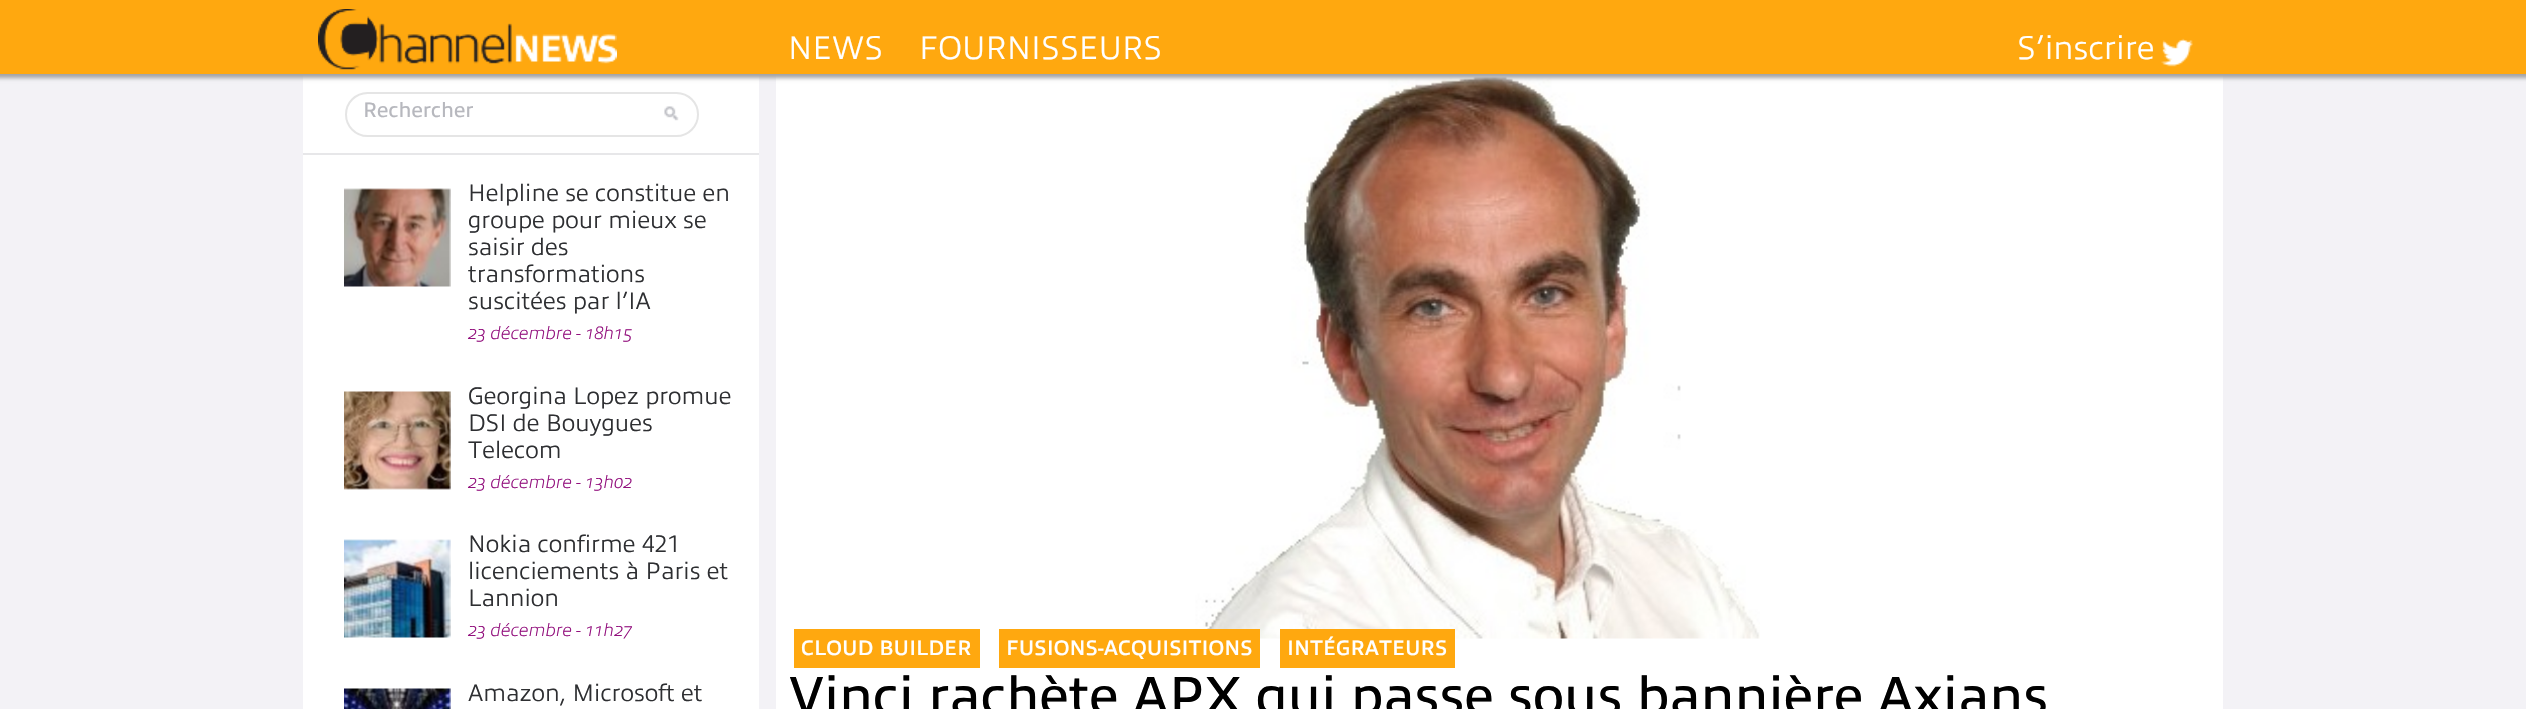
void draw(SkCanvas* canvas) {
  SkPaint paint;
  paint.setAntiAlias(true);
  auto face = [&](const char* family, int weight, float size, bool italic = false) {
    SkFontStyle style(weight, SkFontStyle::kNormal_Width,
      italic ? SkFontStyle::kItalic_Slant : SkFontStyle::kUpright_Slant);
    SkFont result(fontMgr->matchFamilyStyle(family, style), size);
    result.setSubpixel(true);
    return result;
  };
  auto paste = [&](const char* path, float x, float y, float w, float h) {
    auto image = SkImages::DeferredFromEncodedData(SkData::MakeFromFileName(path));
    canvas->drawImageRect(image, SkRect::MakeXYWH(x, y, w, h), SkSamplingOptions());
  };
  canvas->clear(0xfff3f2f6);
  paint.setColor(0xffffffff);
  canvas->drawRect(SkRect::MakeXYWH(303, 74, 456, 635), paint);
  canvas->drawRect(SkRect::MakeXYWH(776, 74, 1447, 635), paint);
  paste("img/8.png", 776, 74, 984, 565);
  paint.setColor(0xffa3a3a4);
  paint.setMaskFilter(SkMaskFilter::MakeBlur(kNormal_SkBlurStyle, 2));
  canvas->drawRect(SkRect::MakeXYWH(-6, -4, 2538, 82), paint);
  paint.setMaskFilter(nullptr);
  paint.setColor(0xffffa80f);
  canvas->drawRect(SkRect::MakeXYWH(0, 0, 2526, 74), paint);
  paste("img/1.png", 318, 9, 299, 61);
  paste("img/2.png", 2161, 38, 32, 29);
  paint.setColor(0xffe7e7e9);
  canvas->drawRect(SkRect::MakeXYWH(303, 153, 456, 2), paint);
  paint.setStroke(true);
  paint.setStrokeWidth(2);
  paint.setColor(0xffe5e5e5);
  canvas->drawRoundRect(SkRect::MakeXYWH(346, 93, 352, 43), 21.5f, 21.5f, paint);
  paste("img/3.png", 664, 106, 15, 15);
  paste("img/4.png", 344, 188, 107, 99);
  paste("img/5.png", 344, 391, 107, 99);
  paste("img/6.png", 344, 539, 107, 99);
  paste("img/7.png", 344, 688, 107, 21);
  paint.setStroke(false);
  {
    const struct { float x, y, w, h; SkColor color; } items[] = {
      {794, 629, 186, 39, 0xffffa80f},
      {999, 629, 261, 39, 0xffffa80f},
      {1280, 629, 175, 39, 0xffffa80f},
    };
    for (auto [x, y, w, h, color] : items) {
      paint.setColor(color);
      canvas->drawRect(SkRect::MakeXYWH(x, y, w, h), paint);
    }
  }
  auto f0 = face("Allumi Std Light", 300, 33);
  paint.setColor(0xffffffff);
  {
    const struct { const char* s; float x, y; } items[] = {
      {"NEWS", 788, 59},
      {"FOURNISSEURS", 919, 59},
      {"S’inscrire", 2017, 59},
    };
    for (auto [s, x, y] : items) {
      canvas->drawString(s, x, y, f0, paint);
    }
  }
  auto f1 = face("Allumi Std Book", 400, 21);
  paint.setColor(0xffb7b8be);
  canvas->drawString("Rechercher", 363, 117, f1, paint);
  auto f2 = face("Allumi Std Light", 300, 24);
  paint.setColor(0xff2e2f32);
  {
    const struct { const char* s; float x, y; } items[] = {
      {"Helpline se constitue en", 468, 201},
      {"groupe pour mieux se", 468, 228},
      {"saisir des", 468, 255},
      {"transformations", 468, 282},
      {"suscitées par l’IA", 468, 309},
    };
    for (auto [s, x, y] : items) {
      canvas->drawString(s, x, y, f2, paint);
    }
  }
  auto f3 = face("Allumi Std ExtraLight", 200, 18, true);
  paint.setColor(0xff93117e);
  canvas->drawString("23 décembre - 18h15", 468, 339, f3, paint);
  paint.setColor(0xff2e2f32);
  {
    const struct { const char* s; float x, y; } items[] = {
      {"Georgina Lopez promue", 468, 404},
      {"DSI de Bouygues", 468, 431},
      {"Telecom", 468, 458},
    };
    for (auto [s, x, y] : items) {
      canvas->drawString(s, x, y, f2, paint);
    }
  }
  paint.setColor(0xff93117e);
  canvas->drawString("23 décembre - 13h02", 468, 488, f3, paint);
  paint.setColor(0xff2e2f32);
  {
    const struct { const char* s; float x, y; } items[] = {
      {"Nokia confirme 421", 468, 552},
      {"licenciements à Paris et", 468, 579},
      {"Lannion", 468, 606},
    };
    for (auto [s, x, y] : items) {
      canvas->drawString(s, x, y, f2, paint);
    }
  }
  paint.setColor(0xff93117e);
  canvas->drawString("23 décembre - 11h27", 468, 636, f3, paint);
  paint.setColor(0xff2e2f32);
  canvas->drawString("Amazon, Microsoft et", 468, 701, f2, paint);
  auto f4 = face("Allumi Std Light", 700, 21);
  paint.setColor(0xffffffff);
  {
    const struct { const char* s; float x, y; } items[] = {
      {"CLOUD BUILDER", 801, 655},
      {"FUSIONS-ACQUISITIONS", 1006, 655},
      {"INTÉGRATEURS", 1287, 655},
    };
    for (auto [s, x, y] : items) {
      canvas->drawString(s, x, y, f4, paint);
    }
  }
  auto f5 = face("Allumi Std Book", 400, 54);
  paint.setColor(0xff000000);
  canvas->drawString("Vinci rachète APX qui passe sous bannière Axians", 789, 714, f5, paint);
}
